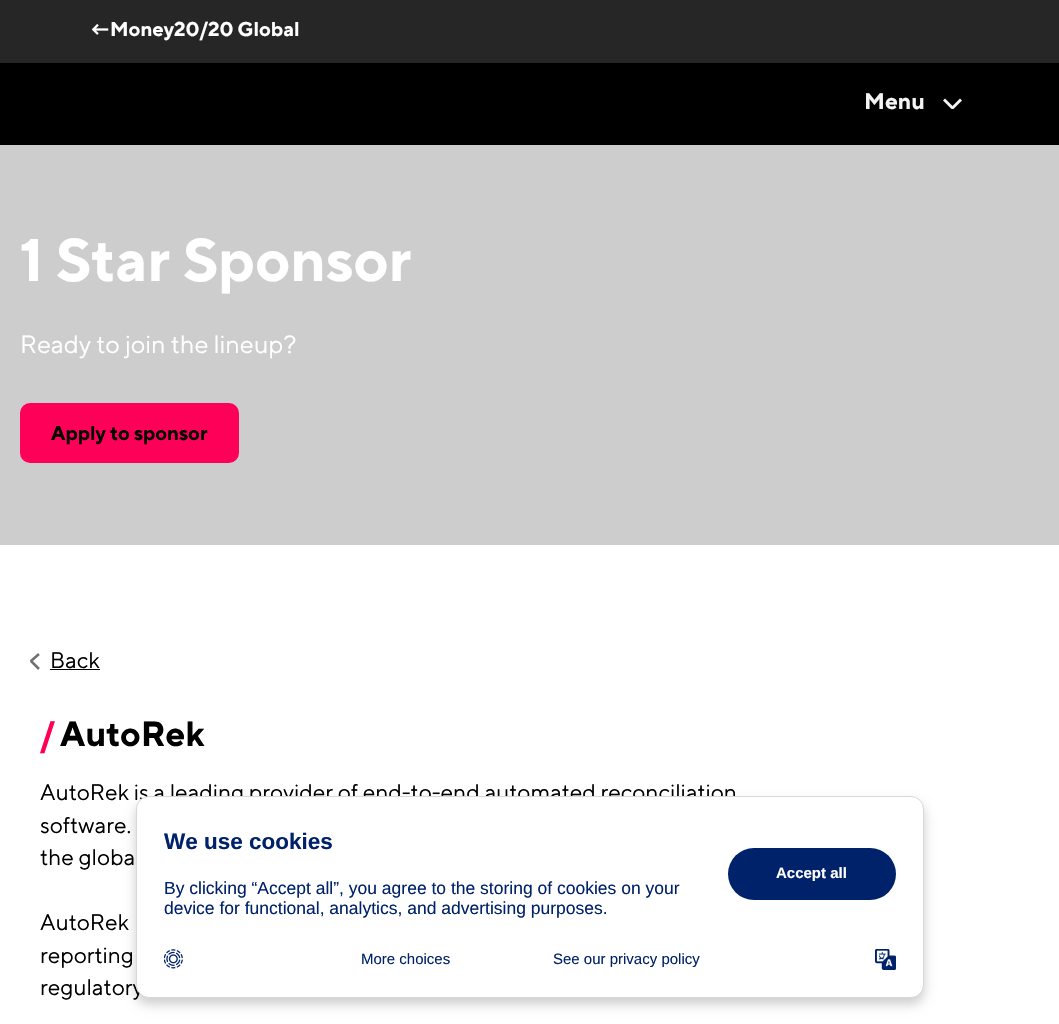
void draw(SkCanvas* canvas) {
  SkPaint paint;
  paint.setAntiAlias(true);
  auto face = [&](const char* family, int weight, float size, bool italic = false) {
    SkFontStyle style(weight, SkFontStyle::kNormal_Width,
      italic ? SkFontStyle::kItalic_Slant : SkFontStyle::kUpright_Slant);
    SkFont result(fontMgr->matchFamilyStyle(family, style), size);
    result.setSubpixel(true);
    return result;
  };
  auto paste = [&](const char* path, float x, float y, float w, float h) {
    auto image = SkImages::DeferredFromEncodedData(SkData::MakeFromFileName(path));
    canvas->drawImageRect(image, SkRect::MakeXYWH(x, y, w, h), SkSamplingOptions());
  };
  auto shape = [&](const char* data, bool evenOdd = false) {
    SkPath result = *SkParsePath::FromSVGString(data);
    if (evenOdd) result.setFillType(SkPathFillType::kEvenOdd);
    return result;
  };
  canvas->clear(0xffffffff);
  paint.setColor(0xff262626);
  canvas->drawRect(SkRect::MakeXYWH(0, 0, 1059, 63), paint);
  paint.setColor(0xff000000);
  canvas->drawRect(SkRect::MakeXYWH(0, 63, 1059, 82), paint);
  paint.setStroke(true);
  paint.setStrokeWidth(2.9f);
  paint.setStrokeJoin(SkPaint::kBevel_Join);
  paint.setColor(0xfff4f4f4);
  canvas->drawPath(shape("M944 99.5L952.5 108L961 99.5"), paint);
  paint.setStroke(false);
  paint.setColor(0xffcdcdcd);
  canvas->drawRect(SkRect::MakeXYWH(0, 145, 1059, 400), paint);
  paint.setColor(0xffff0059);
  canvas->drawRoundRect(SkRect::MakeXYWH(20, 403, 219, 60), 10, 10, paint);
  paint.setStroke(true);
  paint.setStrokeWidth(2.5f);
  paint.setColor(0xff707070);
  canvas->drawPath(shape("M39 654L31 661L39 669"), paint);
  paint.setStroke(false);
  paint.setColor(0xff000000);
  canvas->drawRect(SkRect::MakeXYWH(50, 669, 50, 1), paint);
  paint.setColor(0x33000000);
  paint.setMaskFilter(SkMaskFilter::MakeBlur(kNormal_SkBlurStyle, 6));
  canvas->drawRoundRect(SkRect::MakeXYWH(136, 803, 788, 201), 13, 13, paint);
  paint.setMaskFilter(nullptr);
  auto f0 = face("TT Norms", 700, 20);
  paint.setColor(0xffffffff);
  canvas->drawString("←Money20/20 Global", 90, 36, f0, paint);
  auto f1 = face("TT Norms", 700, 22.5f);
  paint.setColor(0xfff4f4f4);
  canvas->drawString("Menu", 864, 109, f1, paint);
  auto f2 = face("TT Norms", 700, 60);
  paint.setColor(0xffffffff);
  canvas->drawString("1 Star Sponsor", 20, 281, f2, paint);
  auto f3 = face("TT Norms", 400, 25);
  canvas->drawString("Ready to join the lineup?", 20, 353, f3, paint);
  paint.setColor(0xff000000);
  canvas->drawString("Apply to sponsor", 51, 440, f0, paint);
  auto f4 = face("TT Norms", 400, 22.5f);
  canvas->drawString("Back", 50, 668, f4, paint);
  auto f5 = face("TT Norms", 700, 35);
  paint.setColor(0xffff0059);
  canvas->drawString("/", 40, 746, f5, paint);
  paint.setColor(0xff000000);
  canvas->drawString("AutoRek", 60, 746, f5, paint);
  {
    const struct { const char* s; float x, y; } items[] = {
      {"AutoRek is a leading provider of end-to-end automated reconciliation", 40, 800},
      {"software.", 40, 833},
      {"the globa", 40, 865},
      {"AutoRek", 40, 930},
      {"reporting", 40, 963},
      {"regulatory", 40, 995},
    };
    for (auto [s, x, y] : items) {
      canvas->drawString(s, x, y, f4, paint);
    }
  }
  paint.setColor(0xffffffff);
  canvas->drawRoundRect(SkRect::MakeXYWH(136.5f, 796.5f, 787, 201), 12.5f, 12.5f, paint);
  paint.setStroke(true);
  paint.setStrokeWidth(1);
  paint.setStrokeJoin(SkPaint::kMiter_Join);
  paint.setColor(0xffd8d8d8);
  canvas->drawRoundRect(SkRect::MakeXYWH(136.5f, 796.5f, 787, 201), 12.5f, 12.5f, paint);
  auto f6 = face("Liberation Sans", 700, 22.5f);
  paint.setStroke(false);
  paint.setColor(0xff00226a);
  canvas->drawString("We use cookies", 164, 849, f6, paint);
  auto f7 = face("Liberation Sans", 400, 17.5f);
  canvas->drawString("By clicking “Accept all”, you agree to the storing of cookies on your", 164, 894, f7, paint);
  canvas->drawString("device for functional, analytics, and advertising purposes.", 164, 914, f7, paint);
  canvas->drawRoundRect(SkRect::MakeXYWH(728, 848, 168, 52), 26, 26, paint);
  auto f8 = face("Liberation Sans", 700, 15);
  paint.setColor(0xffffffff);
  canvas->drawString("Accept all", 776, 878, f8, paint);
  paste("img/1.png", 164, 949, 19, 20);
  auto f9 = face("Liberation Sans", 400, 15);
  paint.setColor(0xff00226a);
  canvas->drawString("More choices", 361, 964, f9, paint);
  canvas->drawString("See our privacy policy", 553, 964, f9, paint);
  paste("img/2.png", 875, 949, 21, 21);
}
